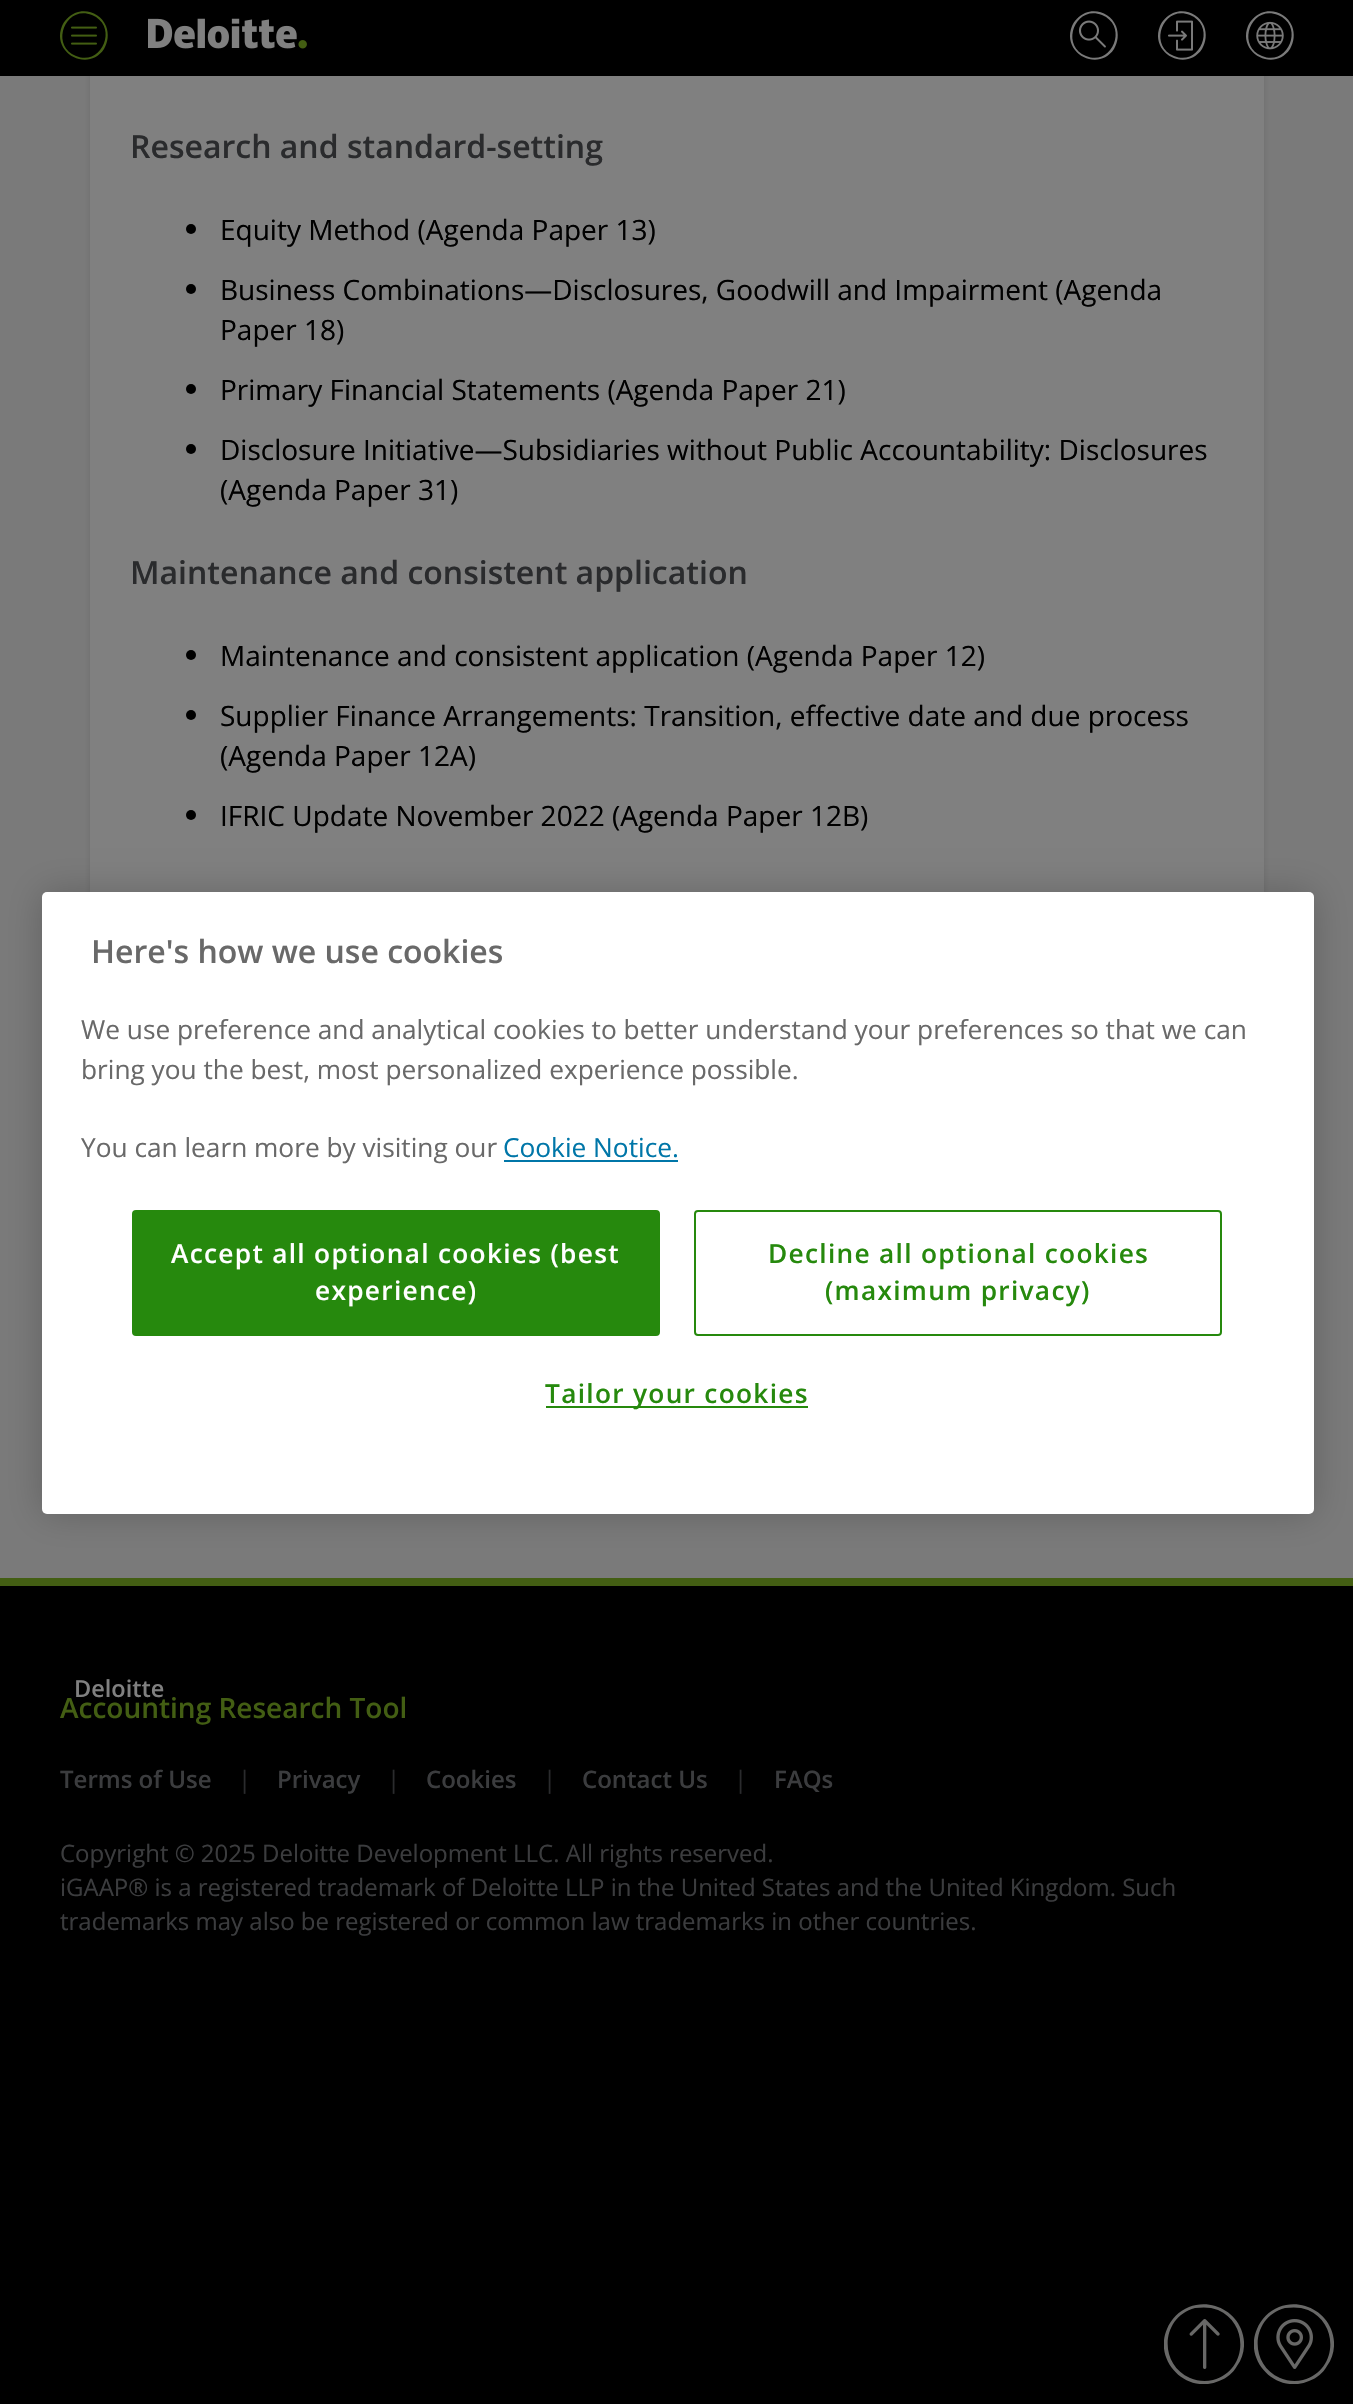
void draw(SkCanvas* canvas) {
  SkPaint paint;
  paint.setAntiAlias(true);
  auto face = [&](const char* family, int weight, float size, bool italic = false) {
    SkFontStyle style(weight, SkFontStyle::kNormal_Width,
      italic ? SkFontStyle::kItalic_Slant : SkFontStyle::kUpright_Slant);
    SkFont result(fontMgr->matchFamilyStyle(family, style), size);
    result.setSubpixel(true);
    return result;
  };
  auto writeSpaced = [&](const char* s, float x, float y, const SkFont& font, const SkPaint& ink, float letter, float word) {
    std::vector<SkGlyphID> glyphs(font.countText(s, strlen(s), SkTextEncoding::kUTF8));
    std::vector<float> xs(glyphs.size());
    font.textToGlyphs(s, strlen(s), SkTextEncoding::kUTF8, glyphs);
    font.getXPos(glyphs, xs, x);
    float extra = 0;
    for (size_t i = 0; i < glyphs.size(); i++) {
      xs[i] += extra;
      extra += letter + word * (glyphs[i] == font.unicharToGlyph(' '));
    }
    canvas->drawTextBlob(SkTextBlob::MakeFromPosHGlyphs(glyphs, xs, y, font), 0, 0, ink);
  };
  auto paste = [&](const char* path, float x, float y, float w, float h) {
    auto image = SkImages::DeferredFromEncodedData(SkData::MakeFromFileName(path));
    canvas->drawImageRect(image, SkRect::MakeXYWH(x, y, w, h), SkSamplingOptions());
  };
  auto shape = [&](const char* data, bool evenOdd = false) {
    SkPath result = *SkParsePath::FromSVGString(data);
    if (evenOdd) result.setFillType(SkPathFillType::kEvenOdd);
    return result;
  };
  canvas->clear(0xff000000);
  paint.setColor(0xff7a7a7a);
  canvas->drawRect(SkRect::MakeXYWH(0, 76, 1353, 1502), paint);
  paint.setColor(0x1a000000);
  paint.setMaskFilter(SkMaskFilter::MakeBlur(kNormal_SkBlurStyle, 3));
  canvas->drawRect(SkRect::MakeXYWH(90, -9, 1174, 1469), paint);
  paint.setMaskFilter(nullptr);
  paint.setColor(0xff435e13);
  canvas->drawPath(shape("M75 13C87 8 101 14 106 26C109 34 108 42 104 49C88 73 51 53 62 26C64 21 69 16 75 13ZM92 15C66 4 49 45 76 56C102 67 119 26 92 15Z"), paint);
  paste("img/1.png", 71, 26, 26, 19);
  paste("img/2.png", 148, 18, 149, 31);
  paste("img/3.png", 298, 40, 9, 9);
  paint.setColor(0xff7a7a7a);
  canvas->drawPath(shape("M1085 13C1097 8 1111 14 1116 26C1119 34 1118 42 1114 49C1098 73 1061 53 1072 26C1074 21 1079 16 1085 13ZM1102 15C1076 4 1059 45 1086 56C1112 67 1129 26 1102 15Z"), paint);
  paste("img/4.png", 1078, 20, 28, 28);
  canvas->drawPath(shape("M1173 13C1185 8 1199 14 1204 26C1207 34 1206 42 1202 49C1186 73 1149 53 1160 26C1162 21 1167 16 1173 13ZM1190 15C1164 4 1147 45 1174 56C1200 67 1217 26 1190 15Z"), paint);
  paste("img/5.png", 1168, 20, 25, 31);
  canvas->drawPath(shape("M1261 13C1273 8 1287 14 1292 26C1295 34 1294 42 1290 49C1274 73 1237 53 1248 26C1250 21 1255 16 1261 13ZM1278 15C1252 4 1235 45 1262 56C1288 67 1305 26 1278 15Z"), paint);
  paste("img/6.png", 1256, 21, 28, 29);
  paint.setColor(0xff808080);
  canvas->drawRect(SkRect::MakeXYWH(90, 76, 1174, 816), paint);
  paint.setColor(0xff000000);
  canvas->drawCircle(191, 229, 5, paint);
  canvas->drawCircle(191, 289, 5, paint);
  canvas->drawCircle(191, 389, 5, paint);
  canvas->drawCircle(191, 449, 5, paint);
  canvas->drawCircle(191, 655, 5, paint);
  canvas->drawCircle(191, 715, 5, paint);
  canvas->drawCircle(191, 815, 5, paint);
  paint.setColor(0x33000000);
  paint.setMaskFilter(SkMaskFilter::MakeBlur(kNormal_SkBlurStyle, 18));
  canvas->drawRoundRect(SkRect::MakeXYWH(42, 892, 1272, 622), 5, 5, paint);
  paint.setMaskFilter(nullptr);
  paint.setColor(0xffffffff);
  canvas->drawRoundRect(SkRect::MakeXYWH(42, 892, 1272, 622), 5, 5, paint);
  paint.setColor(0xff0076a8);
  canvas->drawRect(SkRect::MakeXYWH(504, 1160, 174, 2), paint);
  paint.setColor(0xff26890d);
  canvas->drawRoundRect(SkRect::MakeXYWH(133, 1211, 526, 124), 3, 3, paint);
  paint.setStroke(true);
  paint.setStrokeWidth(2);
  canvas->drawRoundRect(SkRect::MakeXYWH(133, 1211, 526, 124), 3, 3, paint);
  canvas->drawRoundRect(SkRect::MakeXYWH(695, 1211, 526, 124), 3, 3, paint);
  paint.setStroke(false);
  canvas->drawRect(SkRect::MakeXYWH(546, 1406, 262, 2), paint);
  paint.setColor(0xff435e13);
  canvas->drawRect(SkRect::MakeXYWH(0, 1578, 1353, 8), paint);
  canvas->save();
  canvas->clipRect(SkRect::MakeXYWH(1164, 2304, 80, 80));
  paint.setColor(0xff686867);
  canvas->drawPath(shape("M1189 2307C1209 2299 1233 2309 1241 2329C1246 2341 1245 2355 1237 2366C1233 2373 1227 2378 1219 2381C1187 2395 1153 2361 1167 2329C1171 2319 1179 2311 1189 2307ZM1218 2310C1211 2307 1203 2307 1195 2308C1161 2317 1158 2364 1190 2378C1197 2381 1205 2382 1213 2380C1247 2371 1250 2324 1218 2310Z"), paint);
  canvas->restore();
  paste("img/7.png", 1189, 2319, 31, 50);
  canvas->save();
  canvas->clipRect(SkRect::MakeXYWH(1254, 2304, 80, 80));
  canvas->drawPath(shape("M1279 2307C1299 2299 1323 2309 1331 2329C1336 2341 1335 2355 1327 2366C1323 2373 1317 2378 1309 2381C1277 2395 1243 2361 1257 2329C1261 2319 1269 2311 1279 2307ZM1308 2310C1301 2307 1293 2307 1285 2308C1251 2317 1248 2364 1280 2378C1287 2381 1295 2382 1303 2380C1337 2371 1340 2324 1308 2310Z"), paint);
  canvas->restore();
  paste("img/8.png", 1276, 2319, 37, 50);
  auto f0 = face("Open Sans", 600, 32);
  paint.setColor(0xff2a2b2d);
  canvas->drawString("Research and standard-setting", 130, 158, f0, paint);
  auto f1 = face("Open Sans", 400, 28);
  paint.setColor(0xff000000);
  {
    const struct { const char* s; float x, y; } items[] = {
      {"Equity Method (Agenda Paper 13)", 220, 240},
      {"Business Combinations—Disclosures, Goodwill and Impairment (Agenda", 220, 300},
      {"Paper 18)", 220, 340},
      {"Primary Financial Statements (Agenda Paper 21)", 220, 400},
      {"Disclosure Initiative—Subsidiaries without Public Accountability: Disclosures", 220, 460},
      {"(Agenda Paper 31)", 220, 500},
    };
    for (auto [s, x, y] : items) {
      canvas->drawString(s, x, y, f1, paint);
    }
  }
  paint.setColor(0xff2a2b2d);
  canvas->drawString("Maintenance and consistent application", 130, 584, f0, paint);
  paint.setColor(0xff000000);
  {
    const struct { const char* s; float x, y; } items[] = {
      {"Maintenance and consistent application (Agenda Paper 12)", 220, 666},
      {"Supplier Finance Arrangements: Transition, effective date and due process", 220, 726},
      {"(Agenda Paper 12A)", 220, 766},
      {"IFRIC Update November 2022 (Agenda Paper 12B)", 220, 826},
    };
    for (auto [s, x, y] : items) {
      canvas->drawString(s, x, y, f1, paint);
    }
  }
  paint.setColor(0xff696969);
  canvas->drawString("Here's how we use cookies", 91, 963, f0, paint);
  auto f2 = face("Open Sans", 400, 26.25f);
  {
    const struct { const char* s; float x, y; } items[] = {
      {"We use preference and analytical cookies to better understand your preferences so that we can", 81, 1039},
      {"bring you the best, most personalized experience possible.", 81, 1079},
      {"You can learn more by visiting our", 81, 1157},
    };
    for (auto [s, x, y] : items) {
      canvas->drawString(s, x, y, f2, paint);
    }
  }
  paint.setColor(0xff0076a8);
  canvas->drawString("Cookie Notice.", 503, 1157, f2, paint);
  auto f3 = face("Open Sans", 600, 26.25f);
  paint.setColor(0xffffffff);
  writeSpaced("Accept all optional cookies (best", 171, 1263, f3, paint, 1.3f, 0);
  writeSpaced("experience)", 315, 1300, f3, paint, 1.3f, 0);
  paint.setColor(0xff26890d);
  {
    const struct { const char* s; float x, y; } items[] = {
      {"Decline all optional cookies", 768, 1263},
      {"(maximum privacy)", 825, 1300},
      {"Tailor your cookies", 545, 1403},
    };
    for (auto [s, x, y] : items) {
      writeSpaced(s, x, y, f3, paint, 1.3f, 0);
    }
  }
  auto f4 = face("Open Sans", 600, 23.5f);
  paint.setColor(0xff808080);
  canvas->drawString("Deloitte", 74, 1697, f4, paint);
  auto f5 = face("Open Sans", 600, 28);
  paint.setColor(0xff435e13);
  canvas->drawString("Accounting Research Tool", 60, 1718, f5, paint);
  auto f6 = face("Open Sans", 600, 24);
  paint.setColor(0xff3b3c3e);
  canvas->drawString("Terms of Use", 60, 1788, f6, paint);
  auto f7 = face("Open Sans", 400, 24);
  paint.setColor(0xff2a2b2d);
  canvas->drawString("|", 238, 1788, f7, paint);
  paint.setColor(0xff3b3c3e);
  canvas->drawString("Privacy", 277, 1788, f6, paint);
  paint.setColor(0xff2a2b2d);
  canvas->drawString("|", 387, 1788, f7, paint);
  paint.setColor(0xff3b3c3e);
  canvas->drawString("Cookies", 426, 1788, f6, paint);
  paint.setColor(0xff2a2b2d);
  canvas->drawString("|", 543, 1788, f7, paint);
  paint.setColor(0xff3b3c3e);
  canvas->drawString("Contact Us", 582, 1788, f6, paint);
  paint.setColor(0xff2a2b2d);
  canvas->drawString("|", 734, 1788, f7, paint);
  paint.setColor(0xff3b3c3e);
  canvas->drawString("FAQs", 774, 1788, f6, paint);
  {
    const struct { const char* s; float x, y; } items[] = {
      {"Copyright © 2025 Deloitte Development LLC. All rights reserved.", 60, 1862},
      {"iGAAP® is a registered trademark of Deloitte LLP in the United States and the United Kingdom. Such", 60, 1896},
      {"trademarks may also be registered or common law trademarks in other countries.", 60, 1930},
    };
    for (auto [s, x, y] : items) {
      canvas->drawString(s, x, y, f7, paint);
    }
  }
}
